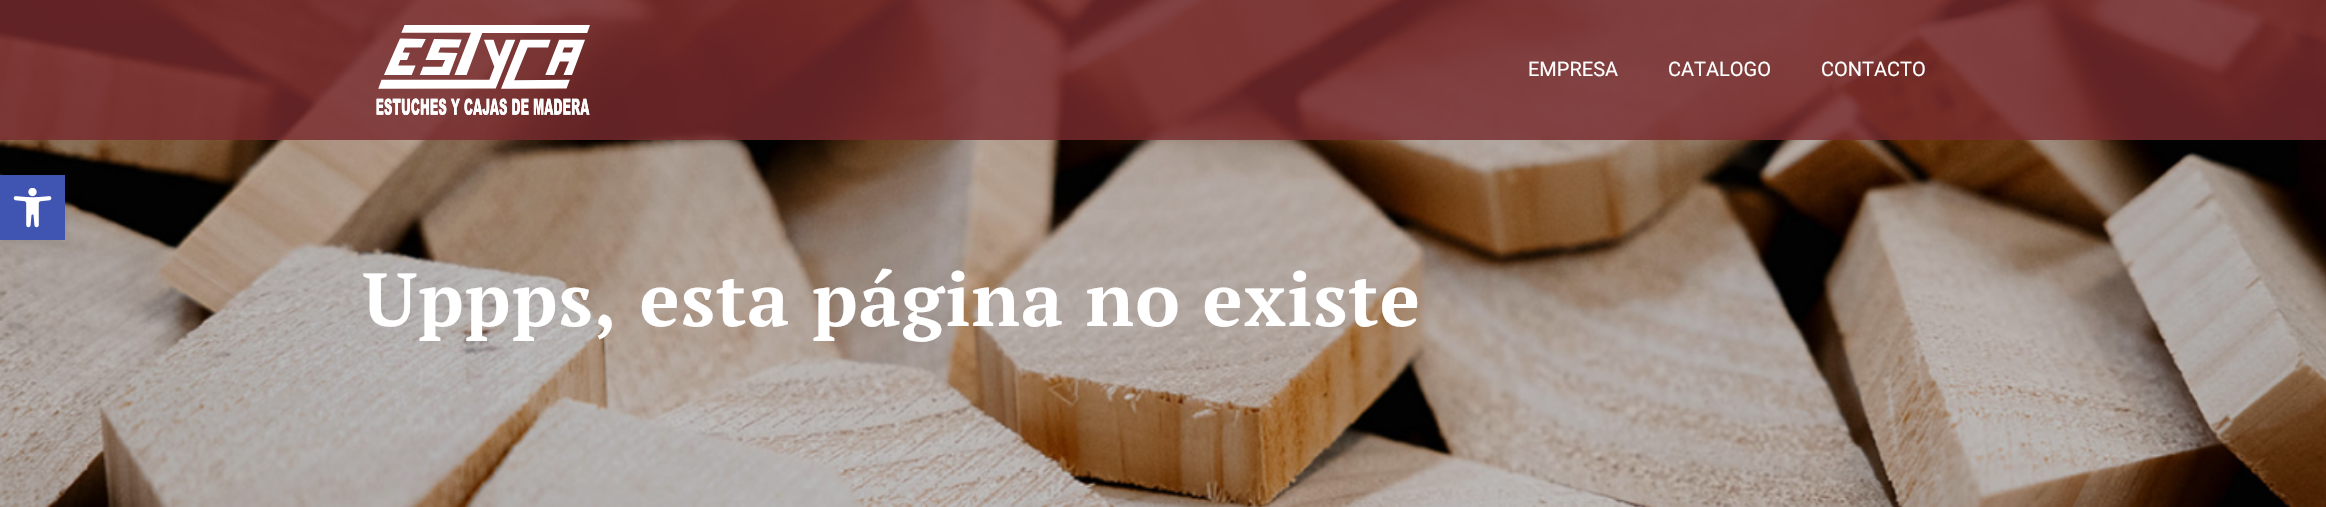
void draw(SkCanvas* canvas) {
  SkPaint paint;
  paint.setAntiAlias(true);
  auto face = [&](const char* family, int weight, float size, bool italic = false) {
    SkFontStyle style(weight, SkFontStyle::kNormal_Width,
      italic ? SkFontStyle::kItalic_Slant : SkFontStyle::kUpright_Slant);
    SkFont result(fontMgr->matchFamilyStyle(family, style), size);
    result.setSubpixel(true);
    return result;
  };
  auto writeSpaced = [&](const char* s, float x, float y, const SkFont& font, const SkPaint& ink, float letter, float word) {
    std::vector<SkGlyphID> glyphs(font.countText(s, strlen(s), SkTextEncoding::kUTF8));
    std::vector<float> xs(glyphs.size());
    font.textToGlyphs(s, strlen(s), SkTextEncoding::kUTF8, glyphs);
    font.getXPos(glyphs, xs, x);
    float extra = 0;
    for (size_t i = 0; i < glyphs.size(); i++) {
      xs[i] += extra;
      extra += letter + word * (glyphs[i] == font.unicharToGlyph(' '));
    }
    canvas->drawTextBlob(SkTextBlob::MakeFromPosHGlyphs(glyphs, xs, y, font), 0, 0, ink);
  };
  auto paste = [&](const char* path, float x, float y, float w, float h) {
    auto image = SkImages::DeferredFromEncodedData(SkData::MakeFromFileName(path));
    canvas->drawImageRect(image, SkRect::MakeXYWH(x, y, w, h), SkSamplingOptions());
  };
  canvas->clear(0xffffffff);
  paste("img/3.png", 0, 0, 2326, 507);
  paint.setColor(0xcf772a2e);
  canvas->drawRect(SkRect::MakeXYWH(0, 0, 2326, 140), paint);
  paste("img/1.png", 376, 25, 214, 90);
  paint.setColor(0x1a000000);
  paint.setMaskFilter(SkMaskFilter::MakeBlur(kNormal_SkBlurStyle, 6));
  canvas->drawRect(SkRect::MakeXYWH(0, 175, 65, 65), paint);
  paint.setMaskFilter(nullptr);
  paint.setColor(0xff4054b2);
  canvas->drawRect(SkRect::MakeXYWH(0, 175, 65, 65), paint);
  paste("img/2.png", 13, 188, 39, 40);
  auto f0 = face("Roboto", 400, 20);
  paint.setColor(0xffffffff);
  {
    const struct { const char* s; float x, y; } items[] = {
      {"EMPRESA", 1528, 76},
      {"CATALOGO", 1668, 76},
      {"CONTACTO", 1821, 76},
    };
    for (auto [s, x, y] : items) {
      canvas->drawString(s, x, y, f0, paint);
    }
  }
  auto f1 = face("PT Serif", 700, 75);
  writeSpaced("Uppps, esta página no existe", 363, 326, f1, paint, 1.25f, 0);
}
